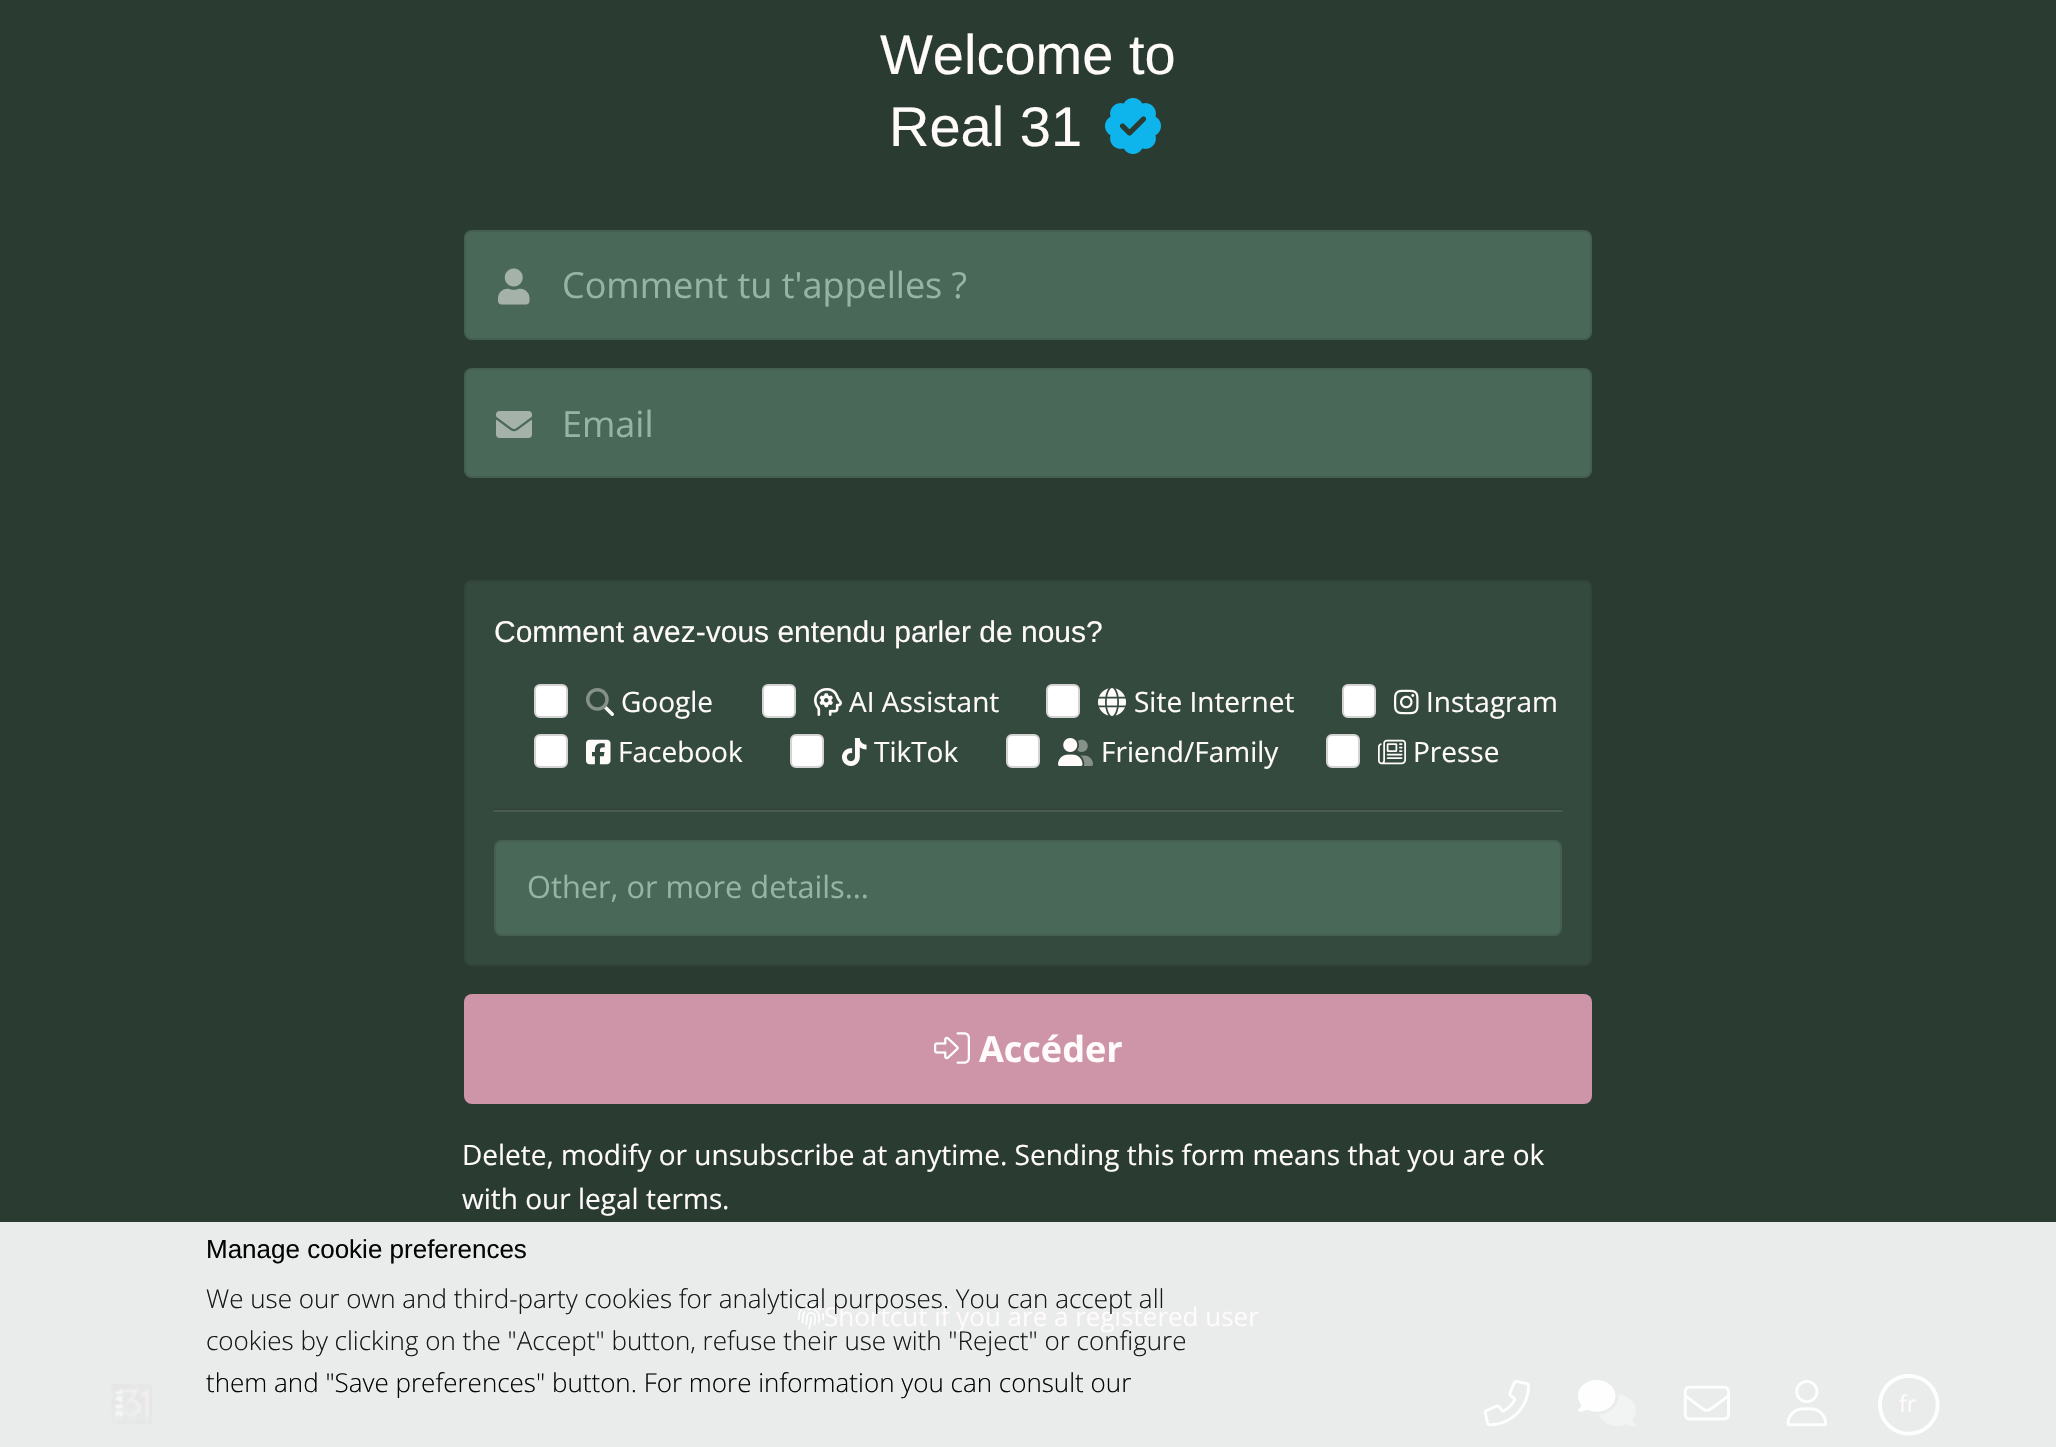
void draw(SkCanvas* canvas) {
  SkPaint paint;
  paint.setAntiAlias(true);
  auto face = [&](const char* family, int weight, float size, bool italic = false) {
    SkFontStyle style(weight, SkFontStyle::kNormal_Width,
      italic ? SkFontStyle::kItalic_Slant : SkFontStyle::kUpright_Slant);
    SkFont result(fontMgr->matchFamilyStyle(family, style), size);
    result.setSubpixel(true);
    return result;
  };
  auto paste = [&](const char* path, float x, float y, float w, float h) {
    auto image = SkImages::DeferredFromEncodedData(SkData::MakeFromFileName(path));
    canvas->drawImageRect(image, SkRect::MakeXYWH(x, y, w, h), SkSamplingOptions());
  };
  canvas->clear(0xff2a3b32);
  paint.setColor(0xffeaebeb);
  canvas->drawRect(SkRect::MakeXYWH(0, 1222, 2056, 225), paint);
  paste("img/1.png", 1105, 98, 56, 56);
  paint.setColor(0xff4a6858);
  canvas->drawRoundRect(SkRect::MakeXYWH(464, 230, 1128, 110), 8, 8, paint);
  paint.setStroke(true);
  paint.setStrokeWidth(2);
  paint.setColor(0x26222426);
  canvas->drawRoundRect(SkRect::MakeXYWH(465, 231, 1126, 108), 7, 7, paint);
  paste("img/2.png", 498, 268, 32, 37);
  paint.setColor(0xff293830);
  canvas->drawRoundRect(SkRect::MakeXYWH(1355, 369, 236, 78), 7, 7, paint);
  paint.setStroke(false);
  paint.setColor(0xff4a6858);
  canvas->drawRoundRect(SkRect::MakeXYWH(464, 368, 1128, 110), 8, 8, paint);
  paint.setStroke(true);
  paint.setColor(0x26222426);
  canvas->drawRoundRect(SkRect::MakeXYWH(465, 369, 1126, 108), 7, 7, paint);
  paste("img/3.png", 496, 411, 36, 27);
  paint.setStroke(false);
  paint.setColor(0xff354a3f);
  canvas->drawRoundRect(SkRect::MakeXYWH(464, 580, 1128, 386), 8, 8, paint);
  paint.setStroke(true);
  paint.setColor(0x26222426);
  canvas->drawRoundRect(SkRect::MakeXYWH(465, 581, 1126, 384), 7, 7, paint);
  paint.setStroke(false);
  paint.setColor(0xffffffff);
  canvas->drawRoundRect(SkRect::MakeXYWH(535, 685, 32, 32), 5, 5, paint);
  paint.setStroke(true);
  paint.setColor(0xffd4d4d5);
  canvas->drawRoundRect(SkRect::MakeXYWH(535, 685, 32, 32), 5, 5, paint);
  paste("img/4.png", 586, 688, 28, 28);
  paint.setStroke(false);
  paint.setColor(0xffffffff);
  canvas->drawRoundRect(SkRect::MakeXYWH(763, 685, 32, 32), 5, 5, paint);
  paint.setStroke(true);
  paint.setColor(0xffd4d4d5);
  canvas->drawRoundRect(SkRect::MakeXYWH(763, 685, 32, 32), 5, 5, paint);
  paste("img/5.png", 814, 688, 28, 28);
  paint.setStroke(false);
  paint.setColor(0xffffffff);
  canvas->drawRoundRect(SkRect::MakeXYWH(1047, 685, 32, 32), 5, 5, paint);
  paint.setStroke(true);
  paint.setColor(0xffd4d4d5);
  canvas->drawRoundRect(SkRect::MakeXYWH(1047, 685, 32, 32), 5, 5, paint);
  paste("img/6.png", 1098, 688, 28, 28);
  paint.setStroke(false);
  paint.setColor(0xffffffff);
  canvas->drawRoundRect(SkRect::MakeXYWH(1343, 685, 32, 32), 5, 5, paint);
  paint.setStroke(true);
  paint.setColor(0xffd4d4d5);
  canvas->drawRoundRect(SkRect::MakeXYWH(1343, 685, 32, 32), 5, 5, paint);
  paste("img/7.png", 1394, 689, 25, 26);
  paint.setStroke(false);
  paint.setColor(0xffffffff);
  canvas->drawRoundRect(SkRect::MakeXYWH(535, 735, 32, 32), 5, 5, paint);
  paint.setStroke(true);
  paint.setColor(0xffd4d4d5);
  canvas->drawRoundRect(SkRect::MakeXYWH(535, 735, 32, 32), 5, 5, paint);
  paste("img/8.png", 586, 739, 25, 26);
  paint.setStroke(false);
  paint.setColor(0xffffffff);
  canvas->drawRoundRect(SkRect::MakeXYWH(791, 735, 32, 32), 5, 5, paint);
  paint.setStroke(true);
  paint.setColor(0xffd4d4d5);
  canvas->drawRoundRect(SkRect::MakeXYWH(791, 735, 32, 32), 5, 5, paint);
  paste("img/9.png", 842, 738, 25, 28);
  paint.setStroke(false);
  paint.setColor(0xffffffff);
  canvas->drawRoundRect(SkRect::MakeXYWH(1007, 735, 32, 32), 5, 5, paint);
  paint.setStroke(true);
  paint.setColor(0xffd4d4d5);
  canvas->drawRoundRect(SkRect::MakeXYWH(1007, 735, 32, 32), 5, 5, paint);
  paste("img/10.png", 1058, 738, 35, 28);
  paint.setStroke(false);
  paint.setColor(0xffffffff);
  canvas->drawRoundRect(SkRect::MakeXYWH(1327, 735, 32, 32), 5, 5, paint);
  paint.setStroke(true);
  paint.setColor(0xffd4d4d5);
  canvas->drawRoundRect(SkRect::MakeXYWH(1327, 735, 32, 32), 5, 5, paint);
  paste("img/11.png", 1378, 739, 28, 26);
  paint.setStroke(false);
  paint.setColor(0xff32443b);
  canvas->drawRect(SkRect::MakeXYWH(494, 808, 1068, 2), paint);
  paint.setColor(0xff495c52);
  canvas->drawRect(SkRect::MakeXYWH(494, 810, 1068, 2), paint);
  paint.setColor(0xff4a6858);
  canvas->drawRoundRect(SkRect::MakeXYWH(494, 840, 1068, 96), 8, 8, paint);
  paint.setStroke(true);
  paint.setColor(0x26222426);
  canvas->drawRoundRect(SkRect::MakeXYWH(495, 841, 1066, 94), 7, 7, paint);
  paint.setStroke(false);
  paint.setColor(0xffce94a8);
  canvas->drawRoundRect(SkRect::MakeXYWH(464, 994, 1128, 110), 8, 8, paint);
  paste("img/12.png", 934, 1032, 36, 32);
  paste("img/13.png", 798, 1304, 26, 26);
  paste("img/14.png", 111, 1384, 41, 40);
  paste("img/15.png", 1483, 1380, 47, 47);
  paste("img/16.png", 1578, 1380, 58, 47);
  paste("img/17.png", 1683, 1385, 47, 36);
  paste("img/18.png", 1786, 1380, 42, 47);
  paste("img/19.png", 1878, 1374, 62, 62);
  auto f0 = face("Liberation Sans", 400, 56);
  paint.setColor(0xfffffbfb);
  canvas->drawString("Welcome to", 880, 74, f0, paint);
  canvas->drawString("Real 31", 889, 146, f0, paint);
  auto f1 = face("Open Sans", 400, 36);
  paint.setColor(0xff96b4a4);
  canvas->drawString("Comment tu t'appelles ?", 562, 298, f1, paint);
  canvas->drawString("Email", 562, 437, f1, paint);
  auto f2 = face("Liberation Sans", 400, 30);
  paint.setColor(0xfffffbfb);
  canvas->drawString("Comment avez-vous entendu parler de nous?", 494, 642, f2, paint);
  auto f3 = face("Open Sans", 400, 28);
  {
    const struct { const char* s; float x, y; } items[] = {
      {"Google", 621, 712},
      {"AI Assistant", 849, 712},
      {"Site Internet", 1134, 712},
      {"Instagram", 1426, 712},
      {"Facebook", 618, 762},
      {"TikTok", 874, 762},
      {"Friend/Family", 1101, 762},
      {"Presse", 1413, 762},
    };
    for (auto [s, x, y] : items) {
      canvas->drawString(s, x, y, f3, paint);
    }
  }
  auto f4 = face("Open Sans", 400, 30.75f);
  paint.setColor(0xff96b4a4);
  canvas->drawString("Other, or more details...", 527, 898, f4, paint);
  auto f5 = face("Open Sans", 700, 36);
  paint.setColor(0xfffffbfb);
  canvas->drawString("Accéder", 979, 1062, f5, paint);
  {
    const struct { const char* s; float x, y; } items[] = {
      {"Delete, modify or unsubscribe at anytime. Sending this form means that you are ok", 462, 1165},
      {"with our", 462, 1209},
      {"legal terms", 578, 1209},
      {".", 722, 1209},
    };
    for (auto [s, x, y] : items) {
      canvas->drawString(s, x, y, f3, paint);
    }
  }
  auto f6 = face("Open Sans", 400, 26);
  canvas->drawString("Shortcut if you are a registered user", 824, 1326, f6, paint);
  auto f7 = face("Liberation Sans", 400, 26);
  paint.setColor(0xff040605);
  canvas->drawString("Manage cookie preferences", 206, 1258, f7, paint);
  auto f8 = face("Open Sans", 300, 26);
  paint.setColor(0xff171817);
  canvas->drawString("We use our own and third-party cookies for analytical purposes. You can accept all", 206, 1308, f8, paint);
  canvas->drawString("cookies by clicking on the \"Accept\" button, refuse their use with \"Reject\" or configure", 206, 1350, f8, paint);
  paint.setColor(0xff040605);
  canvas->drawString("them and \"Save preferences\" button. For more information you can consult our", 206, 1392, f8, paint);
  auto f9 = face("Open Sans", 400, 23);
  paint.setColor(0xfffffbfb);
  canvas->drawString("fr", 1899, 1412, f9, paint);
}
